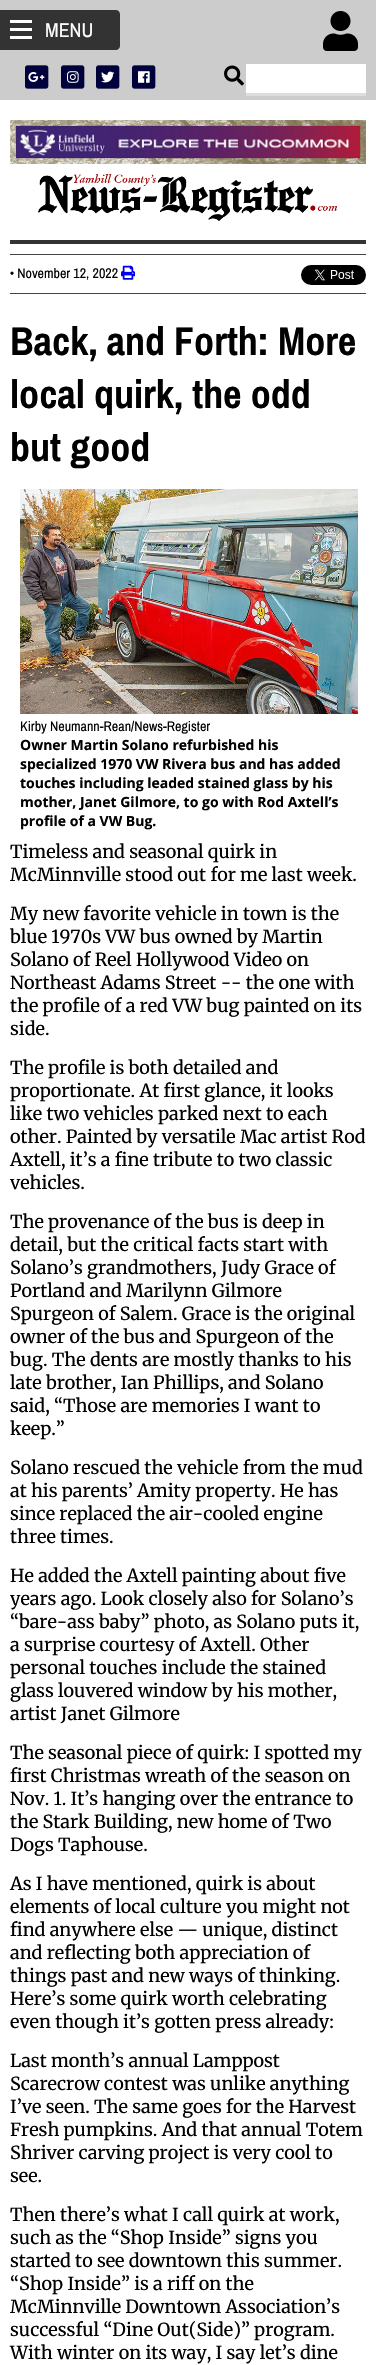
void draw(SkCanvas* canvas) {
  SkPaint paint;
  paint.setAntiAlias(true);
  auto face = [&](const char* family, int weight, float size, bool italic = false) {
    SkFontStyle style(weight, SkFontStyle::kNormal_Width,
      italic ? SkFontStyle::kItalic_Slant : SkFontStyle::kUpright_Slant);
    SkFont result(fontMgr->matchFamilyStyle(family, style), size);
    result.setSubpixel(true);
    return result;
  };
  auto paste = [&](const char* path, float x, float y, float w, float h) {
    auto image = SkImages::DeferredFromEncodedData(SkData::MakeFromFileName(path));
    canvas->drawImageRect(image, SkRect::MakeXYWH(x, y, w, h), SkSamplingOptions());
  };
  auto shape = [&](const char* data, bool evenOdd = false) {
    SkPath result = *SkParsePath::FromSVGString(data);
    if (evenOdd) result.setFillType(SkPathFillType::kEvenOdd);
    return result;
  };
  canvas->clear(0xffffffff);
  paint.setColor(0xffcccccc);
  canvas->drawRect(SkRect::MakeXYWH(0, 0, 376, 100), paint);
  paste("img/1.png", 323, 11, 35, 40);
  paste("img/2.png", 25, 65, 24, 24);
  paste("img/3.png", 28, 72, 17, 10);
  paste("img/2.png", 61, 65, 24, 24);
  paste("img/4.png", 67, 71, 12, 12);
  paste("img/2.png", 96, 65, 24, 24);
  paste("img/5.png", 101, 71, 14, 12);
  paste("img/2.png", 132, 65, 24, 24);
  paste("img/6.png", 138, 71, 12, 12);
  paste("img/7.png", 224, 65, 20, 21);
  paint.setColor(0xffffffff);
  canvas->drawRect(SkRect::MakeXYWH(246, 64, 120, 29), paint);
  paint.setColor(0xffdddddd);
  canvas->drawRect(SkRect::MakeXYWH(246, 93, 120, 3), paint);
  paint.setColor(0xff333333);
  canvas->drawPath(shape("M0 10H116C118 10 120 12 120 14V46C120 48 118 50 116 50H0Z"), paint);
  {
    const struct { float x, y, w, h; SkColor color; } items[] = {
      {10, 20, 22, 3, 0xffffffff},
      {10, 28, 22, 3, 0xffffffff},
      {10, 36, 22, 3, 0xffffffff},
      {10, 240, 356, 4, 0xff333333},
    };
    for (auto [x, y, w, h, color] : items) {
      paint.setColor(color);
      canvas->drawRect(SkRect::MakeXYWH(x, y, w, h), paint);
    }
  }
  paste("img/8.png", 10, 120, 356, 44);
  paste("img/9.png", 38, 174, 300, 47);
  paint.setColor(0xff444444);
  canvas->drawRect(SkRect::MakeXYWH(10, 254, 356, 1), paint);
  canvas->drawRect(SkRect::MakeXYWH(10, 293, 356, 1), paint);
  paste("img/10.png", 121, 265, 14, 15);
  paste("img/11.png", 301, 265, 65, 20);
  paste("img/12.png", 20, 489, 338, 225);
  auto f0 = face("Archivo Narrow", 400, 20);
  paint.setColor(0xffffffff);
  canvas->drawString("MENU", 45, 37, f0, paint);
  auto f1 = face("Archivo Narrow", 400, 14);
  paint.setColor(0xff000000);
  canvas->drawString("• November 12, 2022", 10, 278, f1, paint);
  auto f2 = face("Archivo Narrow", 700, 40);
  {
    const struct { const char* s; float x, y; } items[] = {
      {"Back, and Forth: More", 10, 355},
      {"local quirk, the odd", 10, 408},
      {"but good", 10, 461},
    };
    for (auto [s, x, y] : items) {
      canvas->drawString(s, x, y, f2, paint);
    }
  }
  canvas->drawString("Kirby Neumann-Rean/News-Register", 20, 731, f1, paint);
  auto f3 = face("Open Sans", 700, 14);
  {
    const struct { const char* s; float x, y; } items[] = {
      {"Owner Martin Solano refurbished his", 20, 750},
      {"specialized 1970 VW Rivera bus and has added", 20, 769},
      {"touches including leaded stained glass by his", 20, 788},
      {"mother, Janet Gilmore, to go with Rod Axtell’s", 20, 807},
      {"profile of a VW Bug.", 20, 826},
    };
    for (auto [s, x, y] : items) {
      canvas->drawString(s, x, y, f3, paint);
    }
  }
  auto f4 = face("Merriweather", 400, 18);
  {
    const struct { const char* s; float x, y; } items[] = {
      {"Timeless and seasonal quirk in", 10, 858},
      {"McMinnville stood out for me last week.", 10, 881},
      {"My new favorite vehicle in town is the", 10, 920},
      {"blue 1970s VW bus owned by Martin", 10, 943},
      {"Solano of Reel Hollywood Video on", 10, 966},
      {"Northeast Adams Street -- the one with", 10, 989},
      {"the profile of a red VW bug painted on its", 10, 1012},
      {"side.", 10, 1035},
      {"The profile is both detailed and", 10, 1074},
      {"proportionate. At first glance, it looks", 10, 1097},
      {"like two vehicles parked next to each", 10, 1120},
      {"other. Painted by versatile Mac artist Rod", 10, 1143},
      {"Axtell, it’s a fine tribute to two classic", 10, 1166},
      {"vehicles.", 10, 1189},
      {"The provenance of the bus is deep in", 10, 1228},
      {"detail, but the critical facts start with", 10, 1251},
      {"Solano’s grandmothers, Judy Grace of", 10, 1274},
      {"Portland and Marilynn Gilmore", 10, 1297},
      {"Spurgeon of Salem. Grace is the original", 10, 1320},
      {"owner of the bus and Spurgeon of the", 10, 1343},
      {"bug. The dents are mostly thanks to his", 10, 1366},
      {"late brother, Ian Phillips, and Solano", 10, 1389},
      {"said, “Those are memories I want to", 10, 1412},
      {"keep.”", 10, 1435},
      {"Solano rescued the vehicle from the mud", 10, 1474},
      {"at his parents’ Amity property. He has", 10, 1497},
      {"since replaced the air-cooled engine", 10, 1520},
      {"three times.", 10, 1543},
      {"He added the Axtell painting about five", 10, 1582},
      {"years ago. Look closely also for Solano’s", 10, 1605},
      {"“bare-ass baby” photo, as Solano puts it,", 10, 1628},
      {"a surprise courtesy of Axtell. Other", 10, 1651},
      {"personal touches include the stained", 10, 1674},
      {"glass louvered window by his mother,", 10, 1697},
      {"artist Janet Gilmore", 10, 1720},
      {"The seasonal piece of quirk: I spotted my", 10, 1759},
      {"first Christmas wreath of the season on", 10, 1782},
      {"Nov. 1. It’s hanging over the entrance to", 10, 1805},
      {"the Stark Building, new home of Two", 10, 1828},
      {"Dogs Taphouse.", 10, 1851},
      {"As I have mentioned, quirk is about", 10, 1890},
      {"elements of local culture you might not", 10, 1913},
      {"find anywhere else — unique, distinct", 10, 1936},
      {"and reflecting both appreciation of", 10, 1959},
      {"things past and new ways of thinking.", 10, 1982},
      {"Here’s some quirk worth celebrating", 10, 2005},
      {"even though it’s gotten press already:", 10, 2028},
      {"Last month’s annual Lamppost", 10, 2067},
      {"Scarecrow contest was unlike anything", 10, 2090},
      {"I’ve seen. The same goes for the Harvest", 10, 2113},
      {"Fresh pumpkins. And that annual Totem", 10, 2136},
      {"Shriver carving project is very cool to", 10, 2159},
      {"see.", 10, 2182},
      {"Then there’s what I call quirk at work,", 10, 2221},
      {"such as the “Shop Inside” signs you", 10, 2244},
      {"started to see downtown this summer.", 10, 2267},
      {"“Shop Inside” is a riff on the", 10, 2290},
      {"McMinnville Downtown Association’s", 10, 2313},
      {"successful “Dine Out(Side)” program.", 10, 2336},
      {"With winter on its way, I say let’s dine", 10, 2359},
    };
    for (auto [s, x, y] : items) {
      canvas->drawString(s, x, y, f4, paint);
    }
  }
}
